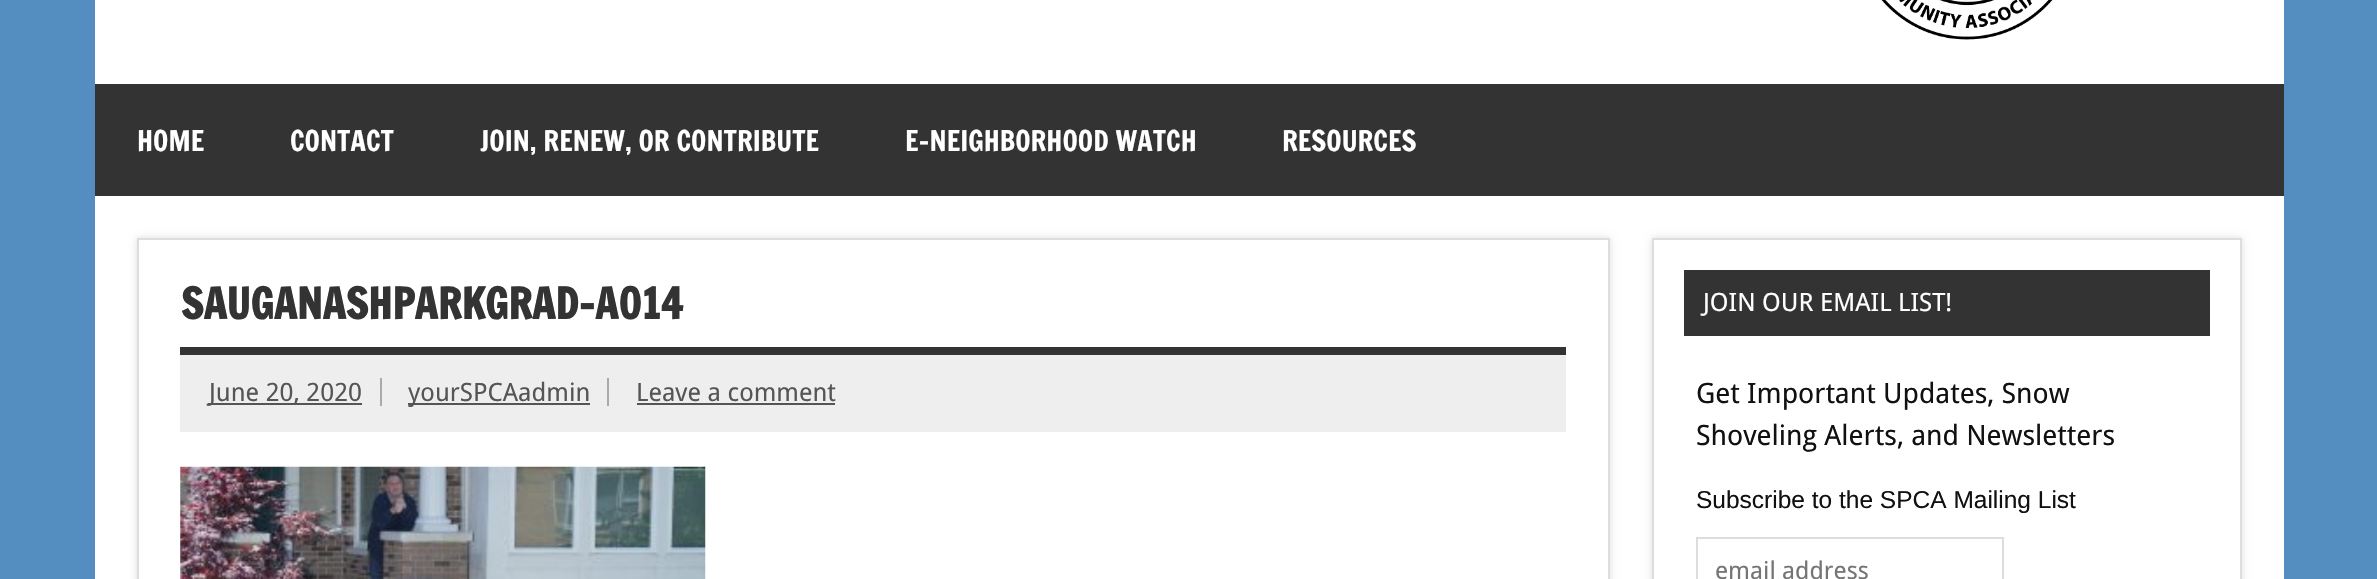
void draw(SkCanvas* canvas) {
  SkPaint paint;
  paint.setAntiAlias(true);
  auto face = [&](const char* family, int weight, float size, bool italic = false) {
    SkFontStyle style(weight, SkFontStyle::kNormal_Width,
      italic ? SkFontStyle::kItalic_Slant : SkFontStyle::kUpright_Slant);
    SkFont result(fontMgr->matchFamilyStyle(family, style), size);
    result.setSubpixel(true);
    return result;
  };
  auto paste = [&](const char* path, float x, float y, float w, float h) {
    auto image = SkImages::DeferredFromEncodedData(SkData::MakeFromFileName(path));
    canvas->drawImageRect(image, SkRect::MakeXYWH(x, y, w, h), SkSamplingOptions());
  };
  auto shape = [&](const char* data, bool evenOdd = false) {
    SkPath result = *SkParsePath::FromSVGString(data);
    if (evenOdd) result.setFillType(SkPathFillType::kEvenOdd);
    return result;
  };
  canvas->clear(0xff548dbf);
  paint.setColor(0xffffffff);
  canvas->drawRect(SkRect::MakeXYWH(95, 0, 2189, 579), paint);
  paste("img/1.png", 1881, 0, 172, 40);
  paint.setColor(0xff333333);
  canvas->drawRect(SkRect::MakeXYWH(95, 84, 2189, 112), paint);
  canvas->save();
  canvas->clipPath(shape("M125 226H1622V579H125ZM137 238H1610V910H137Z", true), true);
  paint.setColor(0xffdddddd);
  paint.setMaskFilter(SkMaskFilter::MakeBlur(kNormal_SkBlurStyle, 3.5f));
  canvas->drawRect(SkRect::MakeXYWH(137, 238, 1473, 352), paint);
  paint.setMaskFilter(nullptr);
  canvas->restore();
  paint.setStroke(true);
  paint.setStrokeWidth(2);
  canvas->drawRect(SkRect::MakeXYWH(138, 239, 1471, 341), paint);
  paint.setStroke(false);
  {
    const struct { float x, y, w, h; SkColor color; } items[] = {
      {180, 347, 1386, 8, 0xff333333},
      {180, 355, 1386, 77, 0xffeeeeee},
      {380, 378, 2, 28, 0xffaaaaaa},
      {208, 403, 154, 2, 0xff555555},
      {607, 378, 2, 28, 0xffaaaaaa},
      {408, 403, 182, 2, 0xff555555},
      {637, 403, 198, 2, 0xff555555},
    };
    for (auto [x, y, w, h, color] : items) {
      paint.setColor(color);
      canvas->drawRect(SkRect::MakeXYWH(x, y, w, h), paint);
    }
  }
  paste("img/2.png", 180, 466, 526, 113);
  paint.setColor(0xffdddddd);
  paint.setMaskFilter(SkMaskFilter::MakeBlur(kNormal_SkBlurStyle, 3.5f));
  canvas->drawRect(SkRect::MakeXYWH(1652, 238, 590, 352), paint);
  paint.setMaskFilter(nullptr);
  paint.setColor(0xffffffff);
  canvas->drawRect(SkRect::MakeXYWH(1653, 239, 588, 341), paint);
  paint.setStroke(true);
  paint.setColor(0xffdddddd);
  canvas->drawRect(SkRect::MakeXYWH(1653, 239, 588, 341), paint);
  paint.setStroke(false);
  paint.setColor(0xff333333);
  canvas->drawRect(SkRect::MakeXYWH(1684, 270, 526, 66), paint);
  paint.setStroke(true);
  paint.setColor(0xffdddddd);
  canvas->drawRect(SkRect::MakeXYWH(1697, 538, 306, 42), paint);
  auto f0 = face("Francois One", 400, 28);
  paint.setStroke(false);
  paint.setColor(0xffffffff);
  {
    const struct { const char* s; float x, y; } items[] = {
      {"HOME", 137, 151},
      {"CONTACT", 290, 151},
      {"JOIN, RENEW, OR CONTRIBUTE", 480, 151},
      {"E-NEIGHBORHOOD WATCH", 905, 151},
      {"RESOURCES", 1282, 151},
    };
    for (auto [s, x, y] : items) {
      canvas->drawString(s, x, y, f0, paint);
    }
  }
  auto f1 = face("Francois One", 700, 42);
  paint.setColor(0xff333333);
  canvas->drawString("SAUGANASHPARKGRAD-A014", 181, 319, f1, paint);
  auto f2 = face("Droid Sans", 400, 25.25f);
  paint.setColor(0xff555555);
  {
    const struct { const char* s; float x, y; } items[] = {
      {"June 20, 2020", 209, 401},
      {"yourSPCAadmin", 408, 401},
      {"Leave a comment", 636, 401},
    };
    for (auto [s, x, y] : items) {
      canvas->drawString(s, x, y, f2, paint);
    }
  }
  paint.setColor(0xffffffff);
  canvas->drawString("JOIN OUR EMAIL LIST!", 1703, 311, f2, paint);
  auto f3 = face("Droid Sans", 400, 28);
  paint.setColor(0xff111111);
  canvas->drawString("Get Important Updates, Snow", 1696, 403, f3, paint);
  canvas->drawString("Shoveling Alerts, and Newsletters", 1696, 445, f3, paint);
  auto f4 = face("Liberation Sans", 400, 24.5f);
  canvas->drawString("Subscribe to the SPCA Mailing List", 1696, 508, f4, paint);
  auto f5 = face("Droid Sans", 400, 24.5f);
  paint.setColor(0xff757575);
  canvas->drawString("email address", 1715, 579, f5, paint);
}
